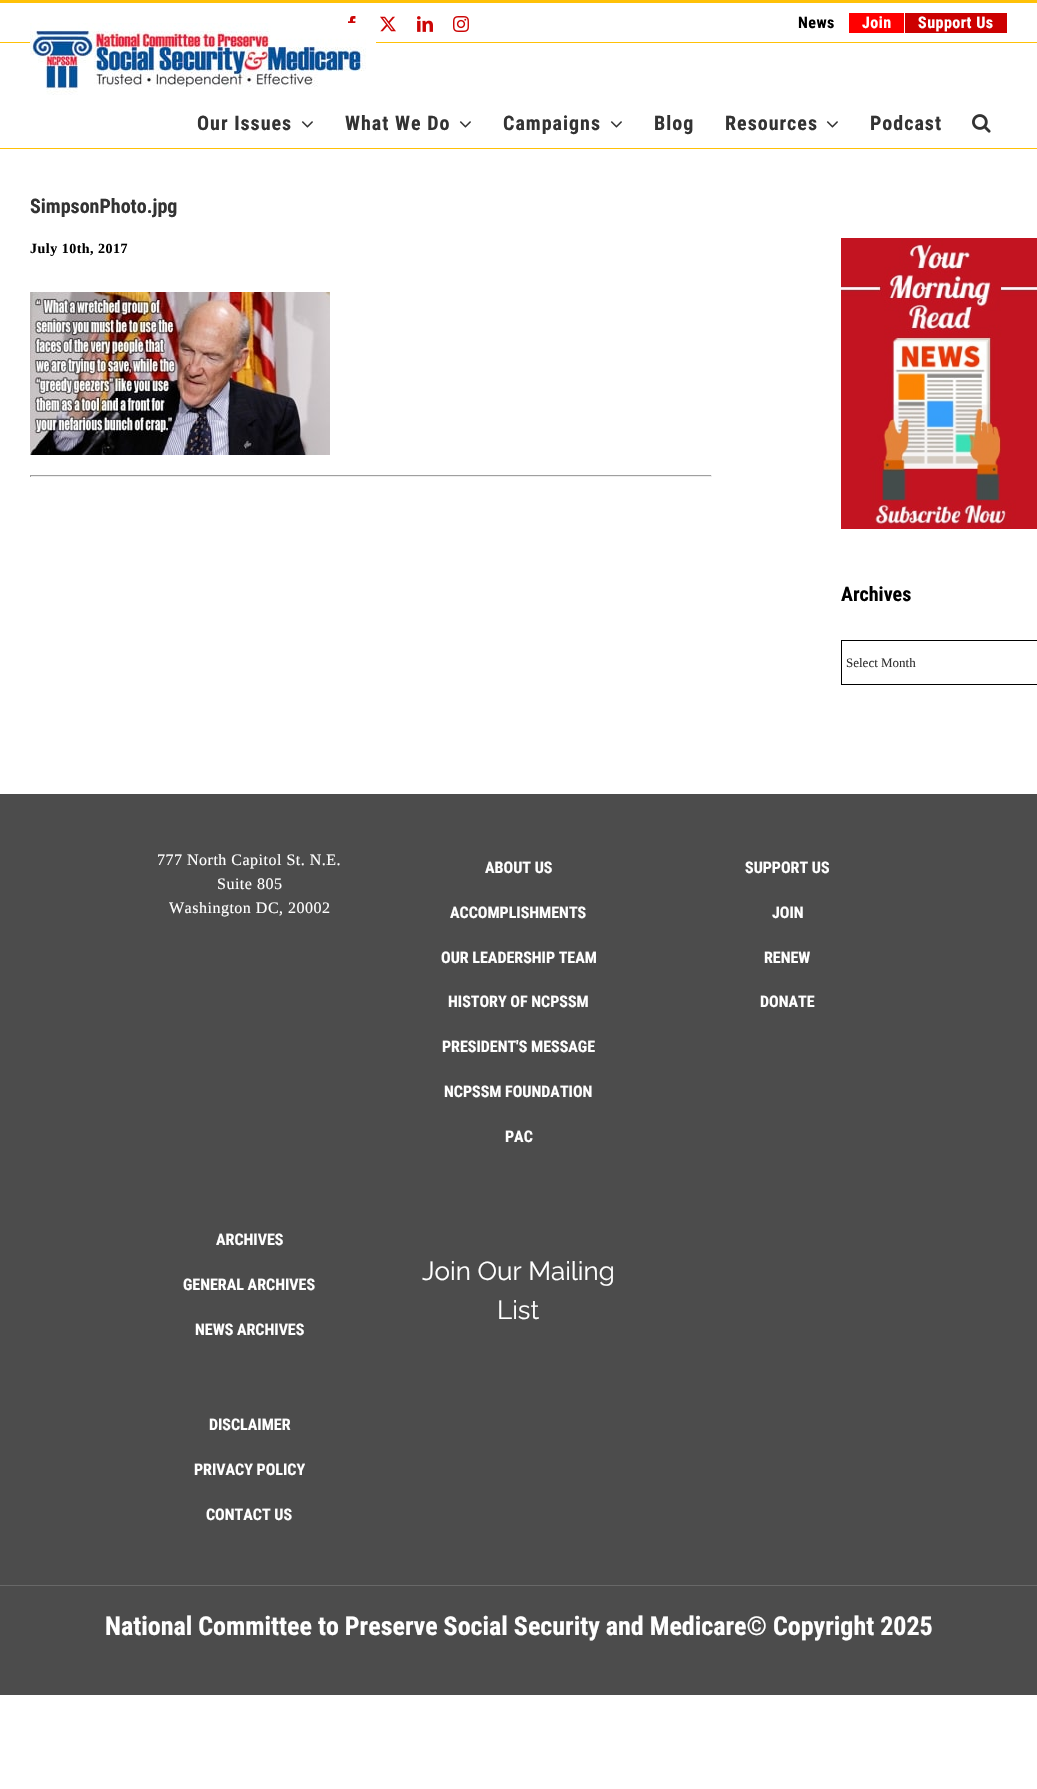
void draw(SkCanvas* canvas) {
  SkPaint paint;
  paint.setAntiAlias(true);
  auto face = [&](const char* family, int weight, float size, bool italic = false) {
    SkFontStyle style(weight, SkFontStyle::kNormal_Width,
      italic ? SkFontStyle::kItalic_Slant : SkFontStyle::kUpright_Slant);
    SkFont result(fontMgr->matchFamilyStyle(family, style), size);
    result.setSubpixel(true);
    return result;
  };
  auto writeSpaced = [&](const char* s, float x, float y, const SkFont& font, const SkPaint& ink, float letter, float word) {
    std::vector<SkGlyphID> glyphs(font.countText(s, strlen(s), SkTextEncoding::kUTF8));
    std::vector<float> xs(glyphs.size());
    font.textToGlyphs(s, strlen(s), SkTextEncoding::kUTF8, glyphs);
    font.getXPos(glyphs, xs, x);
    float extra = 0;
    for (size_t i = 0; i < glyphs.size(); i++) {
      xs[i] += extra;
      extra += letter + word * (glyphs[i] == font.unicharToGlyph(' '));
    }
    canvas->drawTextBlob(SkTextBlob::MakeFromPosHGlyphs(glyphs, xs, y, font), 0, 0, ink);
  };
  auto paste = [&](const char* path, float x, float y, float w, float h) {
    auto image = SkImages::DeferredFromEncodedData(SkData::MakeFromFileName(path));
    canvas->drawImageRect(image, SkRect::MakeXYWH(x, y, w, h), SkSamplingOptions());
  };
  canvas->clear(0xffffffff);
  paint.setColor(0xffffc107);
  canvas->drawRect(SkRect::MakeXYWH(0, 0, 1037, 3), paint);
  canvas->drawRect(SkRect::MakeXYWH(0, 42, 1037, 1), paint);
  paste("img/1.png", 348, 16, 8, 7);
  paste("img/2.png", 380, 16, 16, 16);
  paste("img/3.png", 417, 16, 16, 16);
  paste("img/4.png", 453, 16, 16, 16);
  {
    const struct { float x, y, w, h; SkColor color; } items[] = {
      {849, 13, 55, 20, 0xffff0000},
      {905, 13, 102, 20, 0xffcc0000},
      {0, 148, 1037, 1, 0xffffc107},
    };
    for (auto [x, y, w, h, color] : items) {
      paint.setColor(color);
      canvas->drawRect(SkRect::MakeXYWH(x, y, w, h), paint);
    }
  }
  paste("img/5.png", 30, 23, 346, 72);
  paste("img/6.png", 301, 121, 12, 7);
  paste("img/6.png", 459, 121, 12, 7);
  paste("img/6.png", 610, 121, 12, 7);
  paste("img/6.png", 826, 121, 12, 7);
  paste("img/7.png", 972, 114, 19, 19);
  paste("img/8.png", 30, 292, 300, 163);
  {
    const struct { float x, y, w, h; SkColor color; } items[] = {
      {30, 475, 682, 1, 0xff9f9f9f},
      {711, 475, 1, 2, 0xffeeeeee},
      {30, 476, 682, 1, 0xffeeeeee},
      {30, 475, 1, 2, 0xff9f9f9f},
    };
    for (auto [x, y, w, h, color] : items) {
      paint.setColor(color);
      canvas->drawRect(SkRect::MakeXYWH(x, y, w, h), paint);
    }
  }
  paste("img/9.png", 841, 238, 196, 291);
  paint.setStroke(true);
  paint.setStrokeWidth(1);
  paint.setColor(0xff000000);
  canvas->drawRect(SkRect::MakeXYWH(841.5f, 640.5f, 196, 44), paint);
  paint.setStroke(false);
  {
    const struct { float x, y, w, h; SkColor color; } items[] = {
      {0, 794, 1037, 791, 0xff4c4c4c},
      {0, 1586, 1037, 109, 0xff4c4c4c},
      {0, 1585, 1037, 1, 0xff686868},
    };
    for (auto [x, y, w, h, color] : items) {
      paint.setColor(color);
      canvas->drawRect(SkRect::MakeXYWH(x, y, w, h), paint);
    }
  }
  auto f0 = face("Roboto Condensed", 700, 16);
  paint.setColor(0xff000000);
  writeSpaced("News", 798, 28, f0, paint, 0.5f, 0);
  paint.setColor(0xffffffff);
  writeSpaced("Join", 862, 28, f0, paint, 0.5f, 0);
  writeSpaced("Support Us", 918, 28, f0, paint, 0.5f, 0);
  auto f1 = face("Roboto Condensed", 700, 20);
  paint.setColor(0xff333333);
  {
    const struct { const char* s; float x, y; } items[] = {
      {"Our Issues", 197, 130},
      {"What We Do", 345, 130},
      {"Campaigns", 503, 130},
      {"Blog", 654, 130},
      {"Resources", 725, 130},
      {"Podcast", 870, 130},
    };
    for (auto [s, x, y] : items) {
      writeSpaced(s, x, y, f1, paint, 1, 0);
    }
  }
  canvas->drawString("SimpsonPhoto.jpg", 30, 213, f1, paint);
  auto f2 = face("Liberation Serif", 700, 14);
  paint.setColor(0xff000000);
  writeSpaced("July 10th, 2017", 30, 253, f2, paint, 0.5f, 0);
  canvas->drawString("Archives", 841, 601, f1, paint);
  auto f3 = face("Liberation Serif", 400, 13);
  paint.setColor(0xff333333);
  canvas->drawString("Select Month", 846, 667, f3, paint);
  auto f4 = face("Liberation Serif", 400, 16);
  paint.setColor(0xffffffff);
  {
    const struct { const char* s; float x, y; } items[] = {
      {"777 North Capitol St. N.E.", 157, 865},
      {"Suite 805", 217, 889},
      {"Washington DC, 20002", 169, 913},
    };
    for (auto [s, x, y] : items) {
      writeSpaced(s, x, y, f4, paint, 0.5f, 0);
    }
  }
  {
    const struct { const char* s; float x, y; } items[] = {
      {"ABOUT US", 485, 873},
      {"ACCOMPLISHMENTS", 450, 918},
      {"OUR LEADERSHIP TEAM", 441, 963},
      {"HISTORY OF NCPSSM", 448, 1007},
      {"PRESIDENT'S MESSAGE", 442, 1052},
      {"NCPSSM FOUNDATION", 444, 1097},
      {"PAC", 505, 1142},
      {"SUPPORT US", 745, 873},
      {"JOIN", 772, 918},
      {"RENEW", 764, 963},
      {"DONATE", 760, 1007},
      {"ARCHIVES", 216, 1245},
      {"GENERAL ARCHIVES", 183, 1290},
      {"NEWS ARCHIVES", 195, 1335},
      {"DISCLAIMER", 209, 1430},
      {"PRIVACY POLICY", 194, 1475},
      {"CONTACT US", 206, 1520},
    };
    for (auto [s, x, y] : items) {
      canvas->drawString(s, x, y, f0, paint);
    }
  }
  auto f5 = face("Raleway", 100, 26);
  canvas->drawString("Join Our Mailing", 422, 1280, f5, paint);
  canvas->drawString("List", 497, 1319, f5, paint);
  auto f6 = face("Roboto Condensed", 700, 26);
  canvas->drawString("National Committee to Preserve Social Security and Medicare© Copyright 2025", 105, 1635, f6, paint);
}
